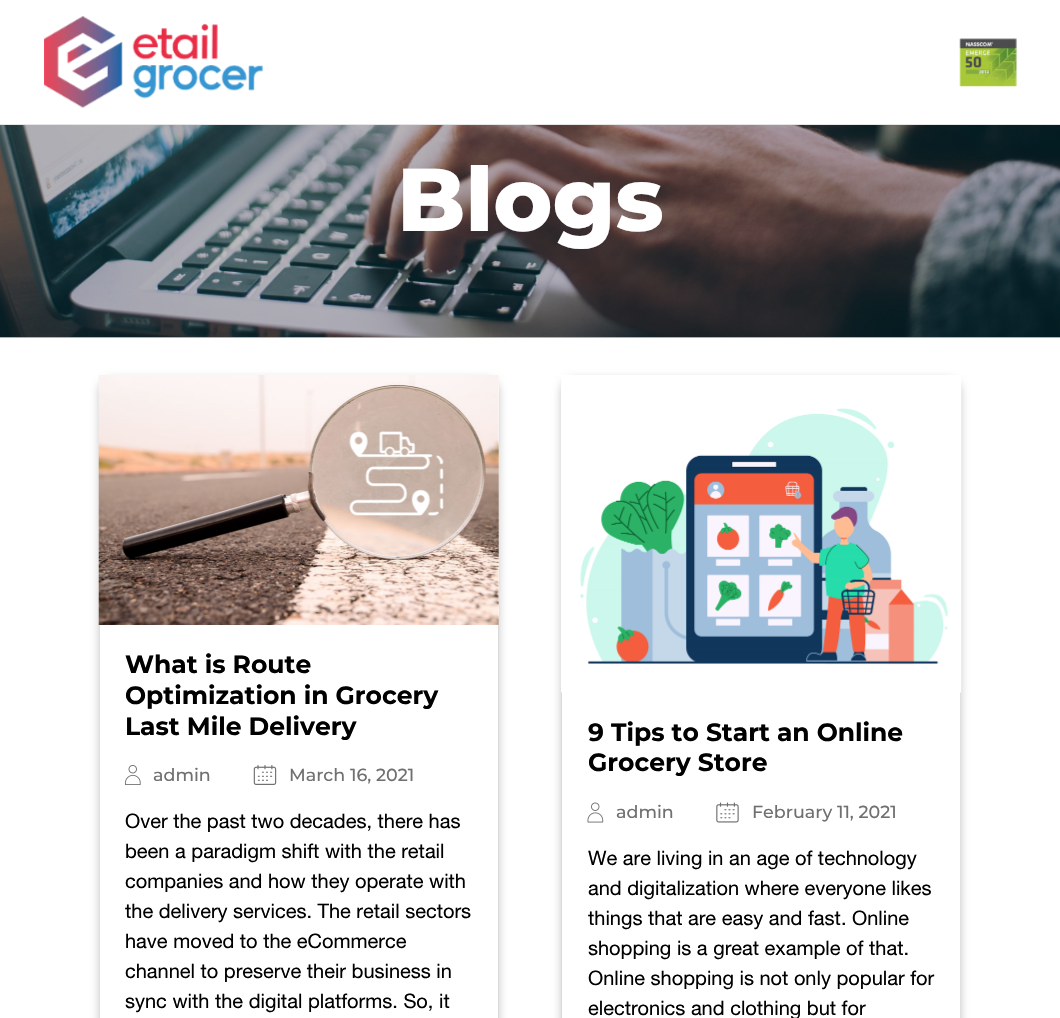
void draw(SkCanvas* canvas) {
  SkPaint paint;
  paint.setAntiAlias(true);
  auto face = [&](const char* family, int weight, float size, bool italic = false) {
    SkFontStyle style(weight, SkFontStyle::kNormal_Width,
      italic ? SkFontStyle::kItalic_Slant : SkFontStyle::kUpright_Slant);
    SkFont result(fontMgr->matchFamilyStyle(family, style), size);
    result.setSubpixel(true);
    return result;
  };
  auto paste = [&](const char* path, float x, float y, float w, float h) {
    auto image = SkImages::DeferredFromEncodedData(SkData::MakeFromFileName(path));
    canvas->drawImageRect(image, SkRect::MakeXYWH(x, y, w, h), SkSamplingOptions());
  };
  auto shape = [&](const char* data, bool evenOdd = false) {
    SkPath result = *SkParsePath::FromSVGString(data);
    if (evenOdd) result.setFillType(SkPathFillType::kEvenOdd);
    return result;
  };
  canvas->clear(0xffffffff);
  paint.setColor(0xffe5e5e5);
  canvas->drawRect(SkRect::MakeXYWH(0, 124, 1060, 1), paint);
  paste("img/1.png", 44, 16, 219, 92);
  paste("img/2.png", 959, 38, 58, 49);
  paste("img/3.png", 0, 125, 1060, 213);
  canvas->save();
  canvas->clipPath(shape("M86 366H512V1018H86ZM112 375H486C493 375 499 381 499 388V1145C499 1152 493 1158 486 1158H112C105 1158 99 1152 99 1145V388C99 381 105 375 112 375Z", true), true);
  paint.setColor(0x38000000);
  paint.setMaskFilter(SkMaskFilter::MakeBlur(kNormal_SkBlurStyle, 4));
  canvas->drawRoundRect(SkRect::MakeXYWH(99, 379, 400, 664), 13, 13, paint);
  paint.setMaskFilter(nullptr);
  canvas->restore();
  paste("img/4.png", 98, 375, 401, 250);
  paint.setColor(0xffdadada);
  canvas->drawPath(shape("M499 625V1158L498 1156V625Z"), paint);
  paint.setColor(0xffe0e0e0);
  canvas->drawPath(shape("M99 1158V625H100V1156Z"), paint);
  paste("img/5.png", 125, 765, 16, 20);
  paste("img/6.png", 253, 765, 24, 20);
  canvas->save();
  canvas->clipPath(shape("M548 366H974V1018H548ZM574 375H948C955 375 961 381 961 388V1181C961 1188 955 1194 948 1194H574C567 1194 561 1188 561 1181V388C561 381 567 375 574 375Z", true), true);
  paint.setColor(0x38000000);
  paint.setMaskFilter(SkMaskFilter::MakeBlur(kNormal_SkBlurStyle, 4));
  canvas->drawRoundRect(SkRect::MakeXYWH(561, 379, 400, 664), 13, 13, paint);
  paint.setMaskFilter(nullptr);
  canvas->restore();
  paint.setColor(0xffe0e0e0);
  canvas->drawPath(shape("M961 692V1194L960 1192V692Z"), paint);
  paint.setColor(0xffdadada);
  canvas->drawPath(shape("M561 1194V692H562V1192Z"), paint);
  paste("img/7.png", 561, 375, 401, 318);
  paste("img/8.png", 587, 802, 17, 21);
  paste("img/9.png", 716, 802, 23, 21);
  auto f0 = face("Montserrat", 800, 89);
  paint.setColor(0xffffffff);
  canvas->drawString("Blogs", 397, 231, f0, paint);
  auto f1 = face("Montserrat", 700, 25);
  paint.setColor(0xff000000);
  {
    const struct { const char* s; float x, y; } items[] = {
      {"What is Route", 125, 673},
      {"Optimization in Grocery", 125, 704},
      {"Last Mile Delivery", 125, 735},
    };
    for (auto [s, x, y] : items) {
      canvas->drawString(s, x, y, f1, paint);
    }
  }
  auto f2 = face("Montserrat", 500, 17.5f);
  paint.setColor(0xff707070);
  canvas->drawString("admin", 153, 781, f2, paint);
  canvas->drawString("March 16, 2021", 289, 781, f2, paint);
  auto f3 = face("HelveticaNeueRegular", 400, 20);
  paint.setColor(0xff000000);
  {
    const struct { const char* s; float x, y; } items[] = {
      {"Over the past two decades, there has", 125, 828},
      {"been a paradigm shift with the retail", 125, 858},
      {"companies and how they operate with", 125, 888},
      {"the delivery services. The retail sectors", 125, 918},
      {"have moved to the eCommerce", 125, 948},
      {"channel to preserve their business in", 125, 978},
      {"sync with the digital platforms. So, it", 125, 1008},
    };
    for (auto [s, x, y] : items) {
      canvas->drawString(s, x, y, f3, paint);
    }
  }
  canvas->drawString("9 Tips to Start an Online", 588, 741, f1, paint);
  canvas->drawString("Grocery Store", 588, 771, f1, paint);
  paint.setColor(0xff707070);
  canvas->drawString("admin", 616, 818, f2, paint);
  canvas->drawString("February 11, 2021", 752, 818, f2, paint);
  paint.setColor(0xff000000);
  {
    const struct { const char* s; float x, y; } items[] = {
      {"We are living in an age of technology", 588, 865},
      {"and digitalization where everyone likes", 588, 895},
      {"things that are easy and fast. Online", 588, 925},
      {"shopping is a great example of that.", 588, 955},
      {"Online shopping is not only popular for", 588, 985},
      {"electronics and clothing but for", 588, 1015},
    };
    for (auto [s, x, y] : items) {
      canvas->drawString(s, x, y, f3, paint);
    }
  }
}
